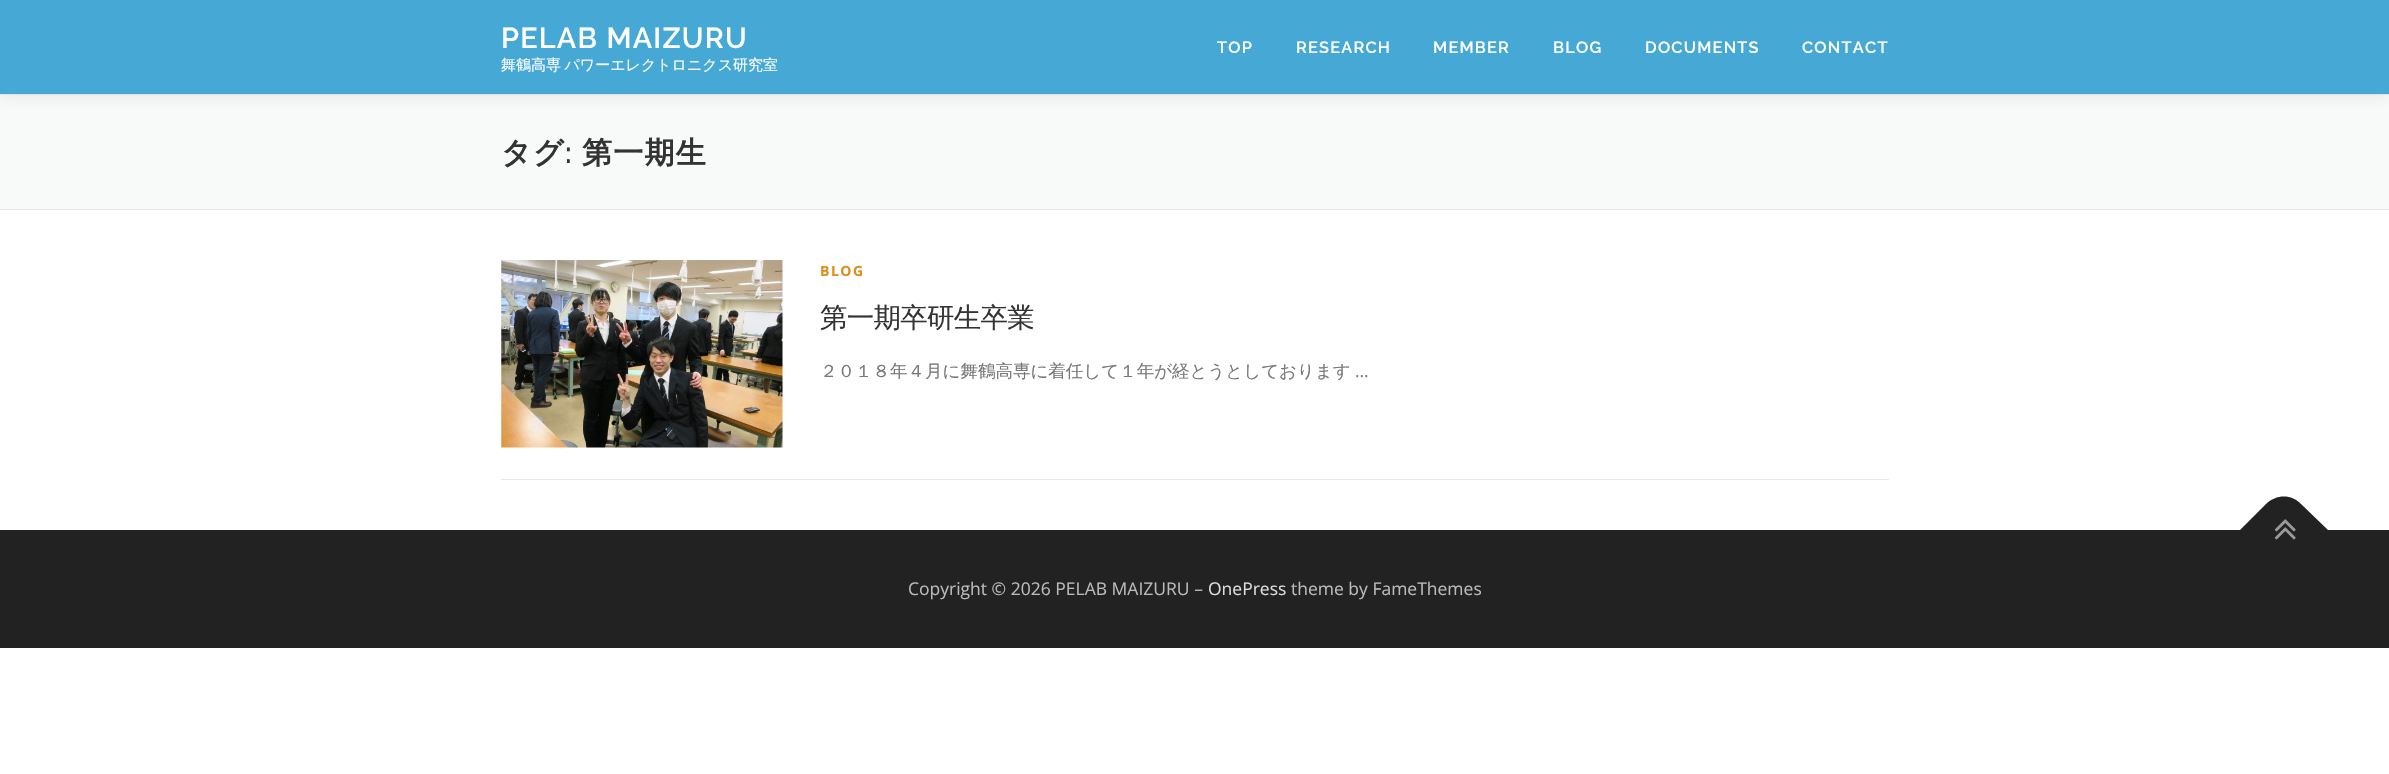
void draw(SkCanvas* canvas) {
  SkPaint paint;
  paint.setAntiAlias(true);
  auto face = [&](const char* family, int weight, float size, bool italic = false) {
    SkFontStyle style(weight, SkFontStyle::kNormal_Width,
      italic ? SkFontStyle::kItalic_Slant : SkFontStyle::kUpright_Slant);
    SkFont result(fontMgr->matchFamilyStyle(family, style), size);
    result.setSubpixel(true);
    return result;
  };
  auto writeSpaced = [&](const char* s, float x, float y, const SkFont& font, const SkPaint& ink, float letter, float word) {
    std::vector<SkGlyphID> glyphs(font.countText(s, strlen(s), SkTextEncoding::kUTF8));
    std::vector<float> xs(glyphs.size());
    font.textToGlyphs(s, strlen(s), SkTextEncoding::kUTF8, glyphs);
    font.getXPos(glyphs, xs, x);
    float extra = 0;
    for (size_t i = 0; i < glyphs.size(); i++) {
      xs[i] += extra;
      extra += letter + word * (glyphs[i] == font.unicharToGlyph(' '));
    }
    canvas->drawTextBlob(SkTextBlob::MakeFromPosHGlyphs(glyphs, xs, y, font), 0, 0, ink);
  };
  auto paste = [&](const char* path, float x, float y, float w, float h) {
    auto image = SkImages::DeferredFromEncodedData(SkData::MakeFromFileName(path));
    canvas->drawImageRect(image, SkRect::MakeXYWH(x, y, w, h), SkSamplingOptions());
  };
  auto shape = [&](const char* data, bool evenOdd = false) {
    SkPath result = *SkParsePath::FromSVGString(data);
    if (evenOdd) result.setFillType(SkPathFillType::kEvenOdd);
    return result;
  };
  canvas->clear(0xffffffff);
  paint.setColor(0xfff8f9f9);
  canvas->drawRect(SkRect::MakeXYWH(0, 95, 2389, 114), paint);
  paint.setColor(0xffe9e9e9);
  canvas->drawRect(SkRect::MakeXYWH(0, 94, 2389, 1), paint);
  paint.setColor(0x0f323232);
  paint.setMaskFilter(SkMaskFilter::MakeBlur(kNormal_SkBlurStyle, 6));
  canvas->drawRect(SkRect::MakeXYWH(0, 6, 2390, 94), paint);
  paint.setMaskFilter(nullptr);
  {
    const struct { float x, y, w, h; SkColor color; } items[] = {
      {0, 0, 2389, 94, 0xff46a8d5},
      {0, 209, 2389, 1, 0xffe9e9e9},
      {501, 479, 1388, 1, 0xffe9e9e9},
    };
    for (auto [x, y, w, h, color] : items) {
      paint.setColor(color);
      canvas->drawRect(SkRect::MakeXYWH(x, y, w, h), paint);
    }
  }
  paste("img/1.png", 501, 260, 282, 188);
  paint.setColor(0xff222222);
  canvas->drawRect(SkRect::MakeXYWH(0, 530, 2389, 118), paint);
  canvas->drawPath(shape("M2240 530L2266 504C2276 494 2292 494 2301 504L2328 530L2284 574Z"), paint);
  paste("img/2.png", 2274, 519, 22, 21);
  auto f0 = face("Raleway", 600, 28.75f);
  paint.setColor(0xffffffff);
  writeSpaced("PELAB MAIZURU", 501, 48, f0, paint, 1.25f, 0);
  auto f1 = face("WenQuanYi Zen Hei", 500, 15);
  writeSpaced("舞鶴高専 パワーエレクトロニクス研究室", 501, 70, f1, paint, 0, -1);
  auto f2 = face("Raleway", 600, 16.25f);
  {
    const struct { const char* s; float x, y; } items[] = {
      {"TOP", 1217, 53},
      {"RESEARCH", 1296, 53},
      {"MEMBER", 1433, 53},
      {"BLOG", 1553, 53},
      {"DOCUMENTS", 1645, 53},
      {"CONTACT", 1802, 53},
    };
    for (auto [s, x, y] : items) {
      writeSpaced(s, x, y, f2, paint, 1.25f, 0);
    }
  }
  auto f3 = face("WenQuanYi Zen Hei", 700, 30);
  paint.setColor(0xff333333);
  writeSpaced("タグ", 501, 163, f3, paint, 1.25f, 0);
  auto f4 = face("Raleway", 600, 30);
  writeSpaced(":", 565, 163, f4, paint, 1.25f, 0);
  writeSpaced("第一期生", 582, 163, f3, paint, 1.25f, 0);
  auto f5 = face("Open Sans", 700, 14);
  paint.setColor(0xffdd8f1a);
  writeSpaced("BLOG", 820, 276, f5, paint, 1.5f, 0);
  auto f6 = face("WenQuanYi Zen Hei", 500, 27.5f);
  paint.setColor(0xff333333);
  writeSpaced("第一期卒研生卒業", 820, 327, f6, paint, -0.75f, 0);
  auto f7 = face("WenQuanYi Zen Hei", 500, 17.5f);
  paint.setColor(0xff777777);
  canvas->drawString("２０１８年４月に舞鶴高専に着任して１年が経とうとしております", 820, 377, f7, paint);
  auto f8 = face("Open Sans", 400, 17.5f);
  canvas->drawString("…", 1355, 377, f8, paint);
  paint.setColor(0xffbbbbbb);
  canvas->drawString("Copyright © 2026 PELAB MAIZURU –", 908, 595, f8, paint);
  paint.setColor(0xffdddddd);
  canvas->drawString("OnePress", 1208, 595, f8, paint);
  paint.setColor(0xffbbbbbb);
  canvas->drawString("theme by FameThemes", 1291, 595, f8, paint);
}
